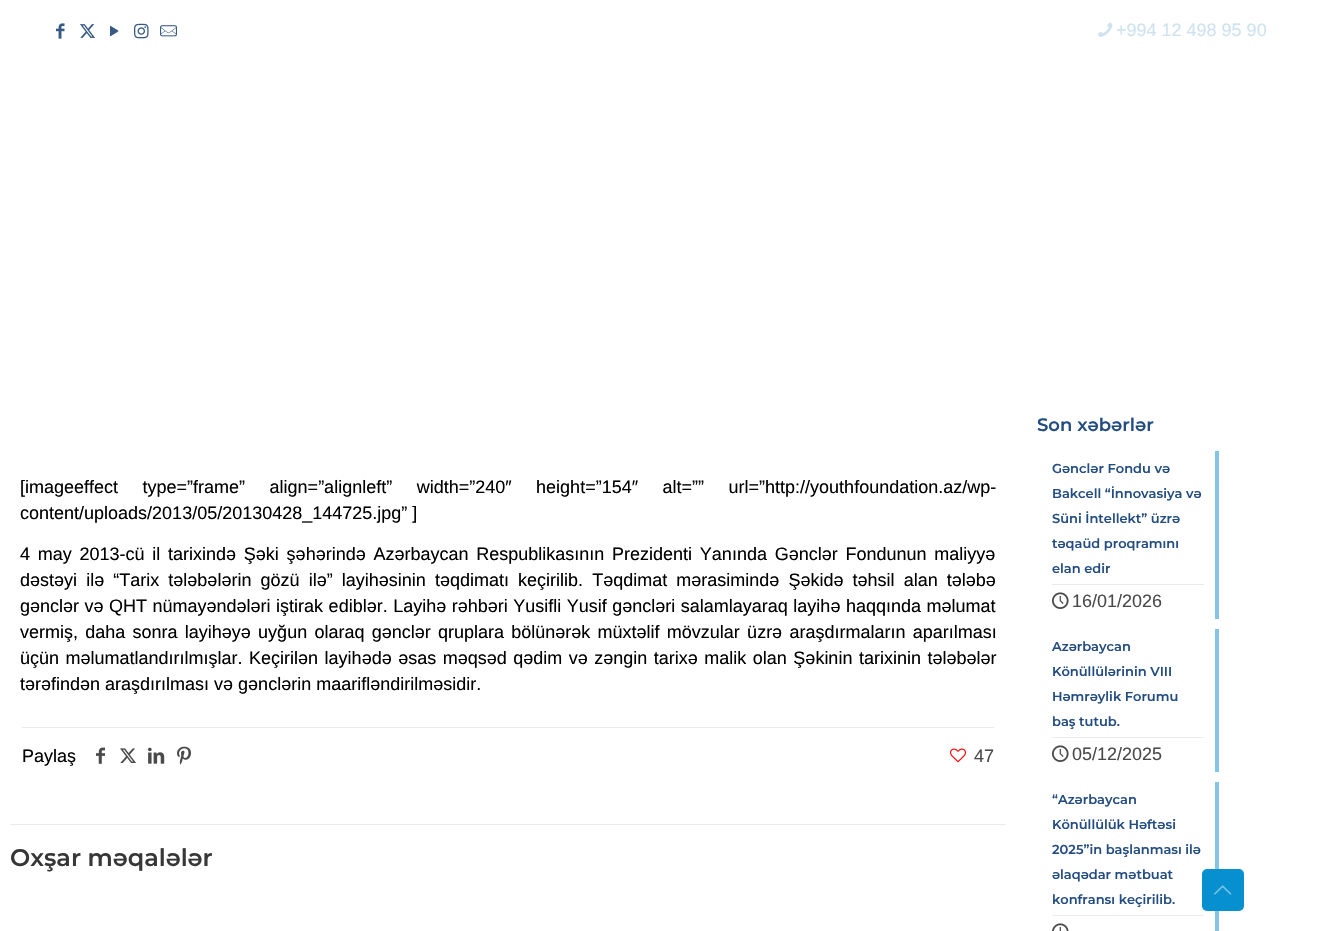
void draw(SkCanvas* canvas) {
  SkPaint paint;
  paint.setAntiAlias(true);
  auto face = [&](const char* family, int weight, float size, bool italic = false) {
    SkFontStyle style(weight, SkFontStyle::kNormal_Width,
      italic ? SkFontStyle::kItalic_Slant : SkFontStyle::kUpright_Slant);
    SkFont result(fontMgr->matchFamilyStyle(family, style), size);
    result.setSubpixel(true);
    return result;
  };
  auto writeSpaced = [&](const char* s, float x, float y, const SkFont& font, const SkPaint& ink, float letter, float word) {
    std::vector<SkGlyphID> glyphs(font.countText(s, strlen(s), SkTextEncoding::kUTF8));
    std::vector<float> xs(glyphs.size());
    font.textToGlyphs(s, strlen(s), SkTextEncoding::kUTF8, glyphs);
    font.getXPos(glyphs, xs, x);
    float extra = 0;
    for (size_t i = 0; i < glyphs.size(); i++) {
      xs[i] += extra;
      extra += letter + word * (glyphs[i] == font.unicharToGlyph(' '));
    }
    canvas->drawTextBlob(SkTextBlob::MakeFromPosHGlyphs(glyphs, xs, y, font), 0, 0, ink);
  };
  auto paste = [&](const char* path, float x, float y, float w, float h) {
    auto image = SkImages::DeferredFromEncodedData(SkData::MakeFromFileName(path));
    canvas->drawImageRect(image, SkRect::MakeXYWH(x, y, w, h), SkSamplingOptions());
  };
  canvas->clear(0xffffffff);
  paste("img/1.png", 56, 23, 9, 16);
  paste("img/2.png", 80, 24, 15, 14);
  paste("img/3.png", 110, 25, 9, 12);
  paste("img/4.png", 134, 23, 15, 16);
  paste("img/5.png", 160, 25, 17, 12);
  paste("img/6.png", 1098, 22, 15, 15);
  paint.setColor(0xffebebeb);
  canvas->drawRect(SkRect::MakeXYWH(22, 727, 972, 1), paint);
  paste("img/7.png", 96, 747, 9, 17);
  paste("img/8.png", 120, 748, 16, 15);
  paste("img/9.png", 148, 747, 17, 17);
  paste("img/10.png", 177, 746, 14, 19);
  paste("img/11.png", 950, 748, 16, 15);
  {
    const struct { float x, y, w, h; SkColor color; } items[] = {
      {10, 824, 996, 1, 0xffebebeb},
      {1052, 584, 152, 1, 0xffebebeb},
      {1215, 451, 4, 168, 0xff82c5e7},
    };
    for (auto [x, y, w, h, color] : items) {
      paint.setColor(color);
      canvas->drawRect(SkRect::MakeXYWH(x, y, w, h), paint);
    }
  }
  paste("img/12.png", 1052, 592, 17, 17);
  paint.setColor(0xffebebeb);
  canvas->drawRect(SkRect::MakeXYWH(1052, 737, 152, 1), paint);
  paint.setColor(0xff82c5e7);
  canvas->drawRect(SkRect::MakeXYWH(1215, 629, 4, 143), paint);
  paste("img/12.png", 1052, 745, 17, 17);
  paint.setColor(0xffebebeb);
  canvas->drawRect(SkRect::MakeXYWH(1052, 915, 152, 1), paint);
  paint.setColor(0xff82c5e7);
  canvas->drawRect(SkRect::MakeXYWH(1215, 782, 4, 149), paint);
  paste("img/13.png", 1052, 923, 17, 8);
  paint.setColor(0xff0690d0);
  canvas->drawRoundRect(SkRect::MakeXYWH(1202, 869, 42, 42), 5, 5, paint);
  paste("img/14.png", 1214, 885, 18, 10);
  auto f0 = face("Liberation Sans", 400, 18);
  paint.setColor(0xffcfe3ef);
  canvas->drawString("+994 12 498 95 90", 1116, 36, f0, paint);
  paint.setColor(0xff000000);
  writeSpaced("[imageeffect type=”frame” align=”alignleft” width=”240″ height=”154″ alt=”” url=”http://youthfoundation.az/wp-", 20, 493, f0, paint, 0, 19.5f);
  canvas->drawString("content/uploads/2013/05/20130428_144725.jpg” ]", 20, 519, f0, paint);
  writeSpaced("4 may 2013-cü il tarixində Şəki şəhərində Azərbaycan Respublikasının Prezidenti Yanında Gənclər Fondunun maliyyə", 20, 560, f0, paint, 0, 2.75f);
  writeSpaced("dəstəyi ilə “Tarix tələbələrin gözü ilə” layihəsinin təqdimatı keçirilib. Təqdimat mərasimində Şəkidə təhsil alan tələbə", 20, 586, f0, paint, 0, 4.1f);
  writeSpaced("gənclər və QHT nümayəndələri iştirak ediblər. Layihə rəhbəri Yusifli Yusif gəncləri salamlayaraq layihə haqqında məlumat", 20, 612, f0, paint, 0, 0.5f);
  writeSpaced("vermiş, daha sonra layihəyə uyğun olaraq gənclər qruplara bölünərək müxtəlif mövzular üzrə araşdırmaların aparılması", 20, 638, f0, paint, 0, 2.25f);
  writeSpaced("üçün məlumatlandırılmışlar. Keçirilən layihədə əsas məqsəd qədim və zəngin tarixə malik olan Şəkinin tarixinin tələbələr", 20, 664, f0, paint, 0, 1.5f);
  canvas->drawString("tərəfindən araşdırılması və gənclərin maarifləndirilməsidir.", 20, 690, f0, paint);
  canvas->drawString("Paylaş", 22, 762, f0, paint);
  paint.setColor(0xff4a4a4a);
  canvas->drawString("47", 974, 762, f0, paint);
  auto f1 = face("Montserrat", 600, 24);
  paint.setColor(0xff373737);
  canvas->drawString("Oxşar məqalələr", 10, 866, f1, paint);
  auto f2 = face("Montserrat", 600, 18);
  paint.setColor(0xff234d82);
  canvas->drawString("Son xəbərlər", 1037, 431, f2, paint);
  auto f3 = face("Montserrat", 600, 13);
  {
    const struct { const char* s; float x, y; } items[] = {
      {"Gənclər Fondu və", 1052, 473},
      {"Bakcell “İnnovasiya və", 1052, 498},
      {"Süni İntellekt” üzrə", 1052, 523},
      {"təqaüd proqramını", 1052, 548},
      {"elan edir", 1052, 573},
    };
    for (auto [s, x, y] : items) {
      canvas->drawString(s, x, y, f3, paint);
    }
  }
  paint.setColor(0xff4a4a4a);
  canvas->drawString("16/01/2026", 1072, 607, f0, paint);
  paint.setColor(0xff234d82);
  {
    const struct { const char* s; float x, y; } items[] = {
      {"Azərbaycan", 1052, 651},
      {"Könüllülərinin VIII", 1052, 676},
      {"Həmrəylik Forumu", 1052, 701},
      {"baş tutub.", 1052, 726},
    };
    for (auto [s, x, y] : items) {
      canvas->drawString(s, x, y, f3, paint);
    }
  }
  paint.setColor(0xff4a4a4a);
  canvas->drawString("05/12/2025", 1072, 760, f0, paint);
  paint.setColor(0xff234d82);
  {
    const struct { const char* s; float x, y; } items[] = {
      {"“Azərbaycan", 1052, 804},
      {"Könüllülük Həftəsi", 1052, 829},
      {"2025”in başlanması ilə", 1052, 854},
      {"əlaqədar mətbuat", 1052, 879},
      {"konfransı keçirilib.", 1052, 904},
    };
    for (auto [s, x, y] : items) {
      canvas->drawString(s, x, y, f3, paint);
    }
  }
}
